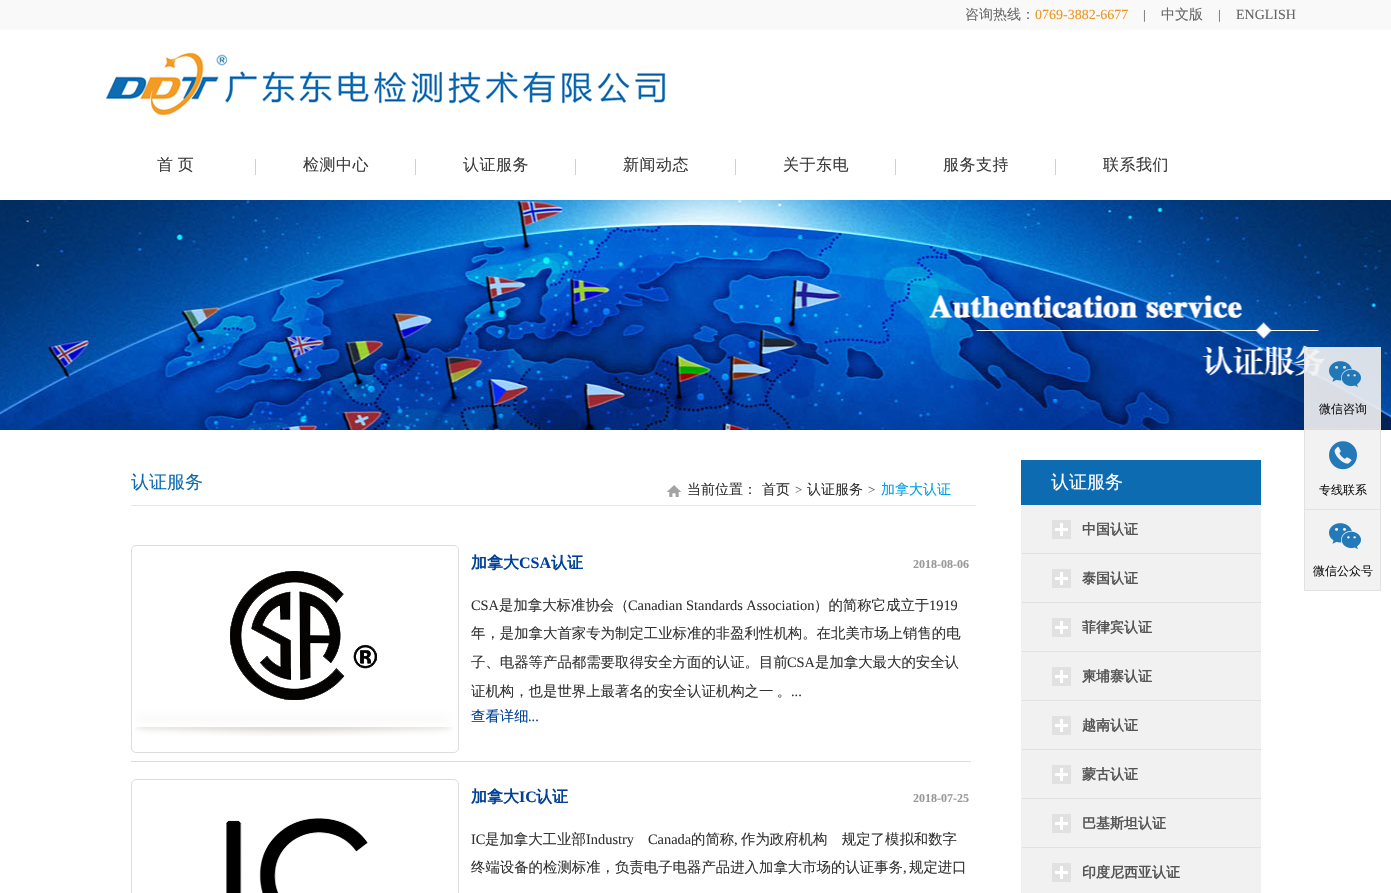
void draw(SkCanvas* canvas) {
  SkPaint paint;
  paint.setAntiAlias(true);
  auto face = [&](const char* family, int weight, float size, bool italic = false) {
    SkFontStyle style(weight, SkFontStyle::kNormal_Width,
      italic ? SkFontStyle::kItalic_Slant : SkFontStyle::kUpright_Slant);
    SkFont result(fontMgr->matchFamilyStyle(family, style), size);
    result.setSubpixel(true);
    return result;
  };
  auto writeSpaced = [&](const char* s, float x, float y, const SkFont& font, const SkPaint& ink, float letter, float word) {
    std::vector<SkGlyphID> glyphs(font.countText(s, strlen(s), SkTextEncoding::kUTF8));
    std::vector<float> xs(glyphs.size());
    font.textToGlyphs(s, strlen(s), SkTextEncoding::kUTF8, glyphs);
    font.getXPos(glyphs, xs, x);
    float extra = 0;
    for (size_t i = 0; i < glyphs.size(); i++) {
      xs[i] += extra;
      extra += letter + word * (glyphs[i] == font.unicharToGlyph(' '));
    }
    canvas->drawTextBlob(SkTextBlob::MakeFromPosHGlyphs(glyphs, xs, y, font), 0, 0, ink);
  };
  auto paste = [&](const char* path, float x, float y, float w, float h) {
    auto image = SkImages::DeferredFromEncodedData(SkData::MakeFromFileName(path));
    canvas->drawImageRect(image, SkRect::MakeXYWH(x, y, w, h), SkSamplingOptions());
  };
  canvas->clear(0xffffffff);
  paint.setColor(0xfff9f9f9);
  canvas->drawRect(SkRect::MakeXYWH(0, 0, 1391, 30), paint);
  paste("img/1.png", 106, 52, 560, 64);
  {
    const struct { float x, y, w, h; SkColor color; } items[] = {
      {255, 159, 1, 16, 0xffd2d2d2},
      {415, 159, 1, 16, 0xffd2d2d2},
      {575, 159, 1, 16, 0xffd2d2d2},
      {735, 159, 1, 16, 0xffd2d2d2},
      {895, 159, 1, 16, 0xffd2d2d2},
      {1055, 159, 1, 16, 0xffd2d2d2},
    };
    for (auto [x, y, w, h, color] : items) {
      paint.setColor(color);
      canvas->drawRect(SkRect::MakeXYWH(x, y, w, h), paint);
    }
  }
  paste("img/2.png", 0, 200, 1391, 230);
  paint.setColor(0xffe6e6e6);
  canvas->drawRect(SkRect::MakeXYWH(131, 505, 845, 1), paint);
  paste("img/3.png", 667, 485, 14, 12);
  paint.setStroke(true);
  paint.setStrokeWidth(1);
  paint.setColor(0xffdddddd);
  canvas->drawRoundRect(SkRect::MakeXYWH(131.5f, 545.5f, 327, 207), 4.5f, 4.5f, paint);
  paste("img/4.png", 135, 571, 319, 165);
  paint.setStroke(false);
  canvas->drawRect(SkRect::MakeXYWH(131, 761, 840, 1), paint);
  paint.setStroke(true);
  canvas->drawRoundRect(SkRect::MakeXYWH(131.5f, 779.5f, 327, 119), 4.5f, 4.5f, paint);
  paste("img/5.png", 226, 818, 142, 75);
  paint.setStroke(false);
  {
    const struct { float x, y, w, h; SkColor color; } items[] = {
      {1021, 460, 240, 45, 0xff0d6bb1},
      {1021, 505, 1, 388, 0xfff0f0f0},
      {1022, 505, 239, 48, 0xfff1f1f1},
    };
    for (auto [x, y, w, h, color] : items) {
      paint.setColor(color);
      canvas->drawRect(SkRect::MakeXYWH(x, y, w, h), paint);
    }
  }
  paste("img/6.png", 1052, 520, 19, 19);
  paint.setColor(0xffe1e1e1);
  canvas->drawRect(SkRect::MakeXYWH(1022, 553, 239, 1), paint);
  paint.setColor(0xfff1f1f1);
  canvas->drawRect(SkRect::MakeXYWH(1022, 554, 239, 48), paint);
  paste("img/6.png", 1052, 569, 19, 19);
  paint.setColor(0xffe1e1e1);
  canvas->drawRect(SkRect::MakeXYWH(1022, 602, 239, 1), paint);
  paint.setColor(0xfff1f1f1);
  canvas->drawRect(SkRect::MakeXYWH(1022, 603, 239, 48), paint);
  paste("img/6.png", 1052, 618, 19, 19);
  paint.setColor(0xffe1e1e1);
  canvas->drawRect(SkRect::MakeXYWH(1022, 651, 239, 1), paint);
  paint.setColor(0xfff1f1f1);
  canvas->drawRect(SkRect::MakeXYWH(1022, 652, 239, 48), paint);
  paste("img/6.png", 1052, 667, 19, 19);
  paint.setColor(0xffe1e1e1);
  canvas->drawRect(SkRect::MakeXYWH(1022, 700, 239, 1), paint);
  paint.setColor(0xfff1f1f1);
  canvas->drawRect(SkRect::MakeXYWH(1022, 701, 239, 48), paint);
  paste("img/6.png", 1052, 716, 19, 19);
  paint.setColor(0xffe1e1e1);
  canvas->drawRect(SkRect::MakeXYWH(1022, 749, 239, 1), paint);
  paint.setColor(0xfff1f1f1);
  canvas->drawRect(SkRect::MakeXYWH(1022, 750, 239, 48), paint);
  paste("img/6.png", 1052, 765, 19, 19);
  paint.setColor(0xffe1e1e1);
  canvas->drawRect(SkRect::MakeXYWH(1022, 798, 239, 1), paint);
  paint.setColor(0xfff1f1f1);
  canvas->drawRect(SkRect::MakeXYWH(1022, 799, 239, 48), paint);
  paste("img/6.png", 1052, 814, 19, 19);
  paint.setColor(0xffe1e1e1);
  canvas->drawRect(SkRect::MakeXYWH(1022, 847, 239, 1), paint);
  paint.setColor(0xfff1f1f1);
  canvas->drawRect(SkRect::MakeXYWH(1022, 848, 239, 45), paint);
  paste("img/6.png", 1052, 863, 19, 19);
  paint.setColor(0xe6f1f1f1);
  canvas->drawRect(SkRect::MakeXYWH(1304, 347, 77, 244), paint);
  paint.setStroke(true);
  paint.setColor(0xe6e0e0e0);
  canvas->drawRect(SkRect::MakeXYWH(1304.5f, 347.5f, 76, 243), paint);
  paste("img/7.png", 1329, 361, 32, 27);
  paint.setStroke(false);
  canvas->drawRect(SkRect::MakeXYWH(1305, 428, 75, 1), paint);
  paste("img/8.png", 1329, 441, 28, 29);
  paint.setColor(0xffe3e3e3);
  canvas->drawRect(SkRect::MakeXYWH(1305, 509, 75, 1), paint);
  paste("img/9.png", 1329, 523, 32, 27);
  auto f0 = face("WenQuanYi Zen Hei", 500, 14);
  paint.setColor(0xff6d6969);
  canvas->drawString("咨询热线：", 965, 19, f0, paint);
  auto f1 = face("Liberation Serif", 400, 14);
  paint.setColor(0xffed9822);
  canvas->drawString("0769-3882-6677", 1035, 19, f1, paint);
  auto f2 = face("Liberation Serif", 400, 13);
  paint.setColor(0xff555555);
  canvas->drawString("|", 1143, 19, f2, paint);
  paint.setColor(0xff666666);
  canvas->drawString("中文版", 1161, 19, f0, paint);
  paint.setColor(0xff555555);
  canvas->drawString("|", 1218, 19, f2, paint);
  paint.setColor(0xff666666);
  canvas->drawString("ENGLISH", 1236, 19, f1, paint);
  auto f3 = face("WenQuanYi Zen Hei", 500, 16);
  paint.setColor(0xff3b3b3b);
  writeSpaced("首 页", 157, 170, f3, paint, 0.5f, -1);
  {
    const struct { const char* s; float x, y; } items[] = {
      {"检测中心", 303, 170},
      {"认证服务", 463, 170},
      {"新闻动态", 623, 170},
      {"关于东电", 783, 170},
      {"服务支持", 943, 170},
      {"联系我们", 1103, 170},
    };
    for (auto [s, x, y] : items) {
      writeSpaced(s, x, y, f3, paint, 0.5f, 0);
    }
  }
  auto f4 = face("WenQuanYi Zen Hei", 500, 18);
  paint.setColor(0xff0d6bb1);
  canvas->drawString("认证服务", 131, 488, f4, paint);
  paint.setColor(0xff333333);
  canvas->drawString("当前位置：", 687, 494, f0, paint);
  canvas->drawString("首页", 762, 494, f0, paint);
  paint.setColor(0xff555555);
  canvas->drawString(">", 795, 494, f2, paint);
  paint.setColor(0xff333333);
  canvas->drawString("认证服务", 807, 494, f0, paint);
  paint.setColor(0xff555555);
  canvas->drawString(">", 868, 494, f2, paint);
  paint.setColor(0xff00a0e9);
  canvas->drawString("加拿大认证", 881, 494, f0, paint);
  auto f5 = face("WenQuanYi Zen Hei", 700, 16);
  paint.setColor(0xff004098);
  canvas->drawString("加拿大", 471, 568, f5, paint);
  auto f6 = face("Liberation Serif", 700, 16);
  canvas->drawString("CSA", 519, 568, f6, paint);
  canvas->drawString("认证", 551, 568, f5, paint);
  auto f7 = face("Liberation Serif", 700, 12);
  paint.setColor(0xff999999);
  canvas->drawString("2018-08-06", 913, 568, f7, paint);
  auto f8 = face("Liberation Serif", 400, 14.4f);
  paint.setColor(0xff333333);
  canvas->drawString("CSA", 471, 610, f8, paint);
  auto f9 = face("WenQuanYi Zen Hei", 500, 14.4f);
  canvas->drawString("是加拿大标准协会（", 499, 610, f9, paint);
  canvas->drawString("Canadian Standards Association", 628, 610, f8, paint);
  canvas->drawString("）的简称它成立于", 814, 610, f9, paint);
  canvas->drawString("1919", 929, 610, f8, paint);
  canvas->drawString("年，是加拿大首家专为制定工业标准的非盈利性机构。在北美市场上销售的电", 471, 638, f9, paint);
  canvas->drawString("子、电器等产品都需要取得安全方面的认证。目前", 471, 667, f9, paint);
  canvas->drawString("CSA", 787, 667, f8, paint);
  canvas->drawString("是加拿大最大的安全认", 815, 667, f9, paint);
  writeSpaced("证机构，也是世界上最著名的安全认证机构之一 。", 471, 696, f9, paint, 0, -1);
  canvas->drawString("...", 791, 696, f8, paint);
  paint.setColor(0xff004098);
  canvas->drawString("查看详细", 471, 721, f9, paint);
  canvas->drawString("...", 528, 721, f8, paint);
  canvas->drawString("加拿大", 471, 802, f5, paint);
  canvas->drawString("IC", 519, 802, f6, paint);
  canvas->drawString("认证", 536, 802, f5, paint);
  paint.setColor(0xff999999);
  canvas->drawString("2018-07-25", 913, 802, f7, paint);
  paint.setColor(0xff333333);
  canvas->drawString("IC", 471, 844, f8, paint);
  canvas->drawString("是加拿大工业部", 485, 844, f9, paint);
  canvas->drawString("Industry", 586, 844, f8, paint);
  canvas->drawString("Canada", 648, 844, f8, paint);
  canvas->drawString("的简称", 691, 844, f9, paint);
  canvas->drawString(",", 734, 844, f8, paint);
  canvas->drawString("作为政府机构　规定了模拟和数字", 741, 844, f9, paint);
  canvas->drawString("终端设备的检测标准，负责电子电器产品进入加拿大市场的认证事务", 471, 872, f9, paint);
  canvas->drawString(",", 903, 872, f8, paint);
  canvas->drawString("规定进口", 909, 872, f9, paint);
  paint.setColor(0xffffffff);
  canvas->drawString("认证服务", 1051, 488, f4, paint);
  auto f10 = face("WenQuanYi Zen Hei", 700, 14);
  paint.setColor(0xff555555);
  {
    const struct { const char* s; float x, y; } items[] = {
      {"中国认证", 1082, 534},
      {"泰国认证", 1082, 583},
      {"菲律宾认证", 1082, 632},
      {"柬埔寨认证", 1082, 681},
      {"越南认证", 1082, 730},
      {"蒙古认证", 1082, 779},
      {"巴基斯坦认证", 1082, 828},
      {"印度尼西亚认证", 1082, 877},
    };
    for (auto [s, x, y] : items) {
      canvas->drawString(s, x, y, f10, paint);
    }
  }
  auto f11 = face("WenQuanYi Zen Hei", 500, 12);
  paint.setColor(0xff161617);
  {
    const struct { const char* s; float x, y; } items[] = {
      {"微信咨询", 1319, 413},
      {"专线联系", 1319, 494},
      {"微信公众号", 1313, 575},
    };
    for (auto [s, x, y] : items) {
      canvas->drawString(s, x, y, f11, paint);
    }
  }
}
